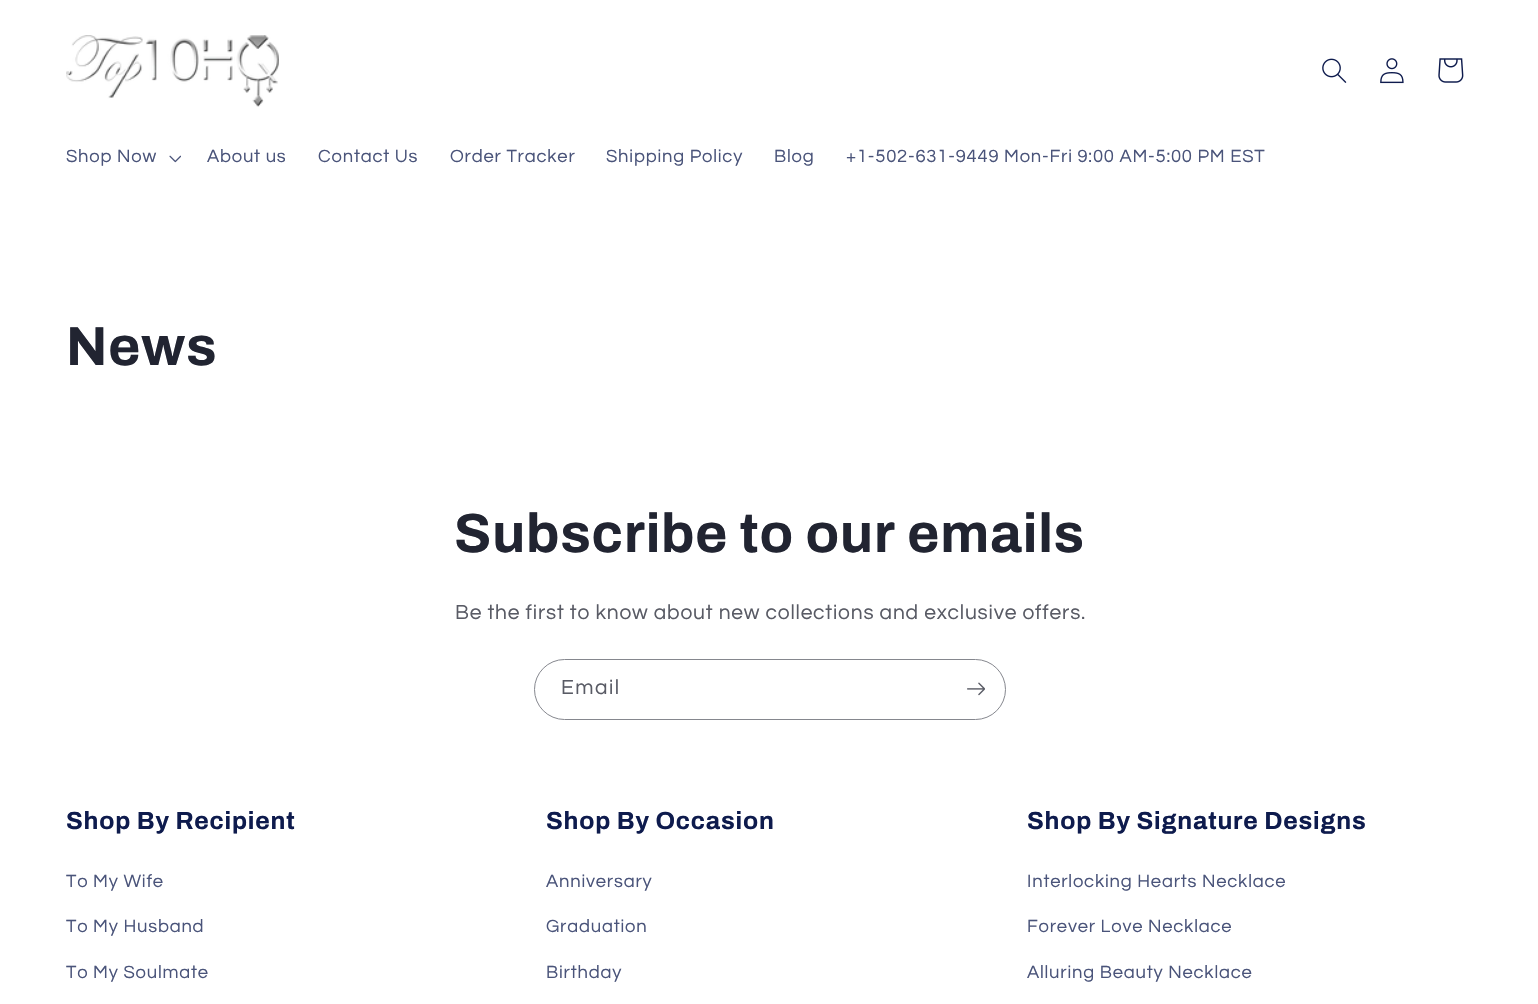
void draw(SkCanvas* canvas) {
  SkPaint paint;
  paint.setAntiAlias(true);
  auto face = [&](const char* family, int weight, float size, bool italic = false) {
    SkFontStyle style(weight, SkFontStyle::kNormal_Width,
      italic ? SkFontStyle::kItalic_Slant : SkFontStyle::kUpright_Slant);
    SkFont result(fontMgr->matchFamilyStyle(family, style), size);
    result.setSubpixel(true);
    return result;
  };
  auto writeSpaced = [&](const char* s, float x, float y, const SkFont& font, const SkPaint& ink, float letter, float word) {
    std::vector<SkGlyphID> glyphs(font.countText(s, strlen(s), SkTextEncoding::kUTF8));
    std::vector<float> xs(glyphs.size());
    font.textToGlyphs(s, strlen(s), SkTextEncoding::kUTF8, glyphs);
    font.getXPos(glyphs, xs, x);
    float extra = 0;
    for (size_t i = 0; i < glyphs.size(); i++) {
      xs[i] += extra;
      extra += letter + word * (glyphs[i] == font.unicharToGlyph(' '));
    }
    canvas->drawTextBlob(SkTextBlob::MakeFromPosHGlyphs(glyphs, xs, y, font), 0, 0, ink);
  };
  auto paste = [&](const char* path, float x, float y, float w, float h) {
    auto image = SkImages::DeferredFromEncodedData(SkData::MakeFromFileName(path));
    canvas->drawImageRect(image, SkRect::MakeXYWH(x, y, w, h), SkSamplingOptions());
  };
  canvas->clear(0xffffffff);
  paste("img/1.png", 66, 35, 213, 72);
  paste("img/2.png", 1322, 58, 25, 25);
  paste("img/3.png", 1380, 58, 24, 26);
  paste("img/4.png", 1438, 58, 26, 25);
  paste("img/5.png", 169, 155, 12, 8);
  paint.setStroke(true);
  paint.setStrokeWidth(1);
  paint.setColor(0xff85878e);
  canvas->drawRoundRect(SkRect::MakeXYWH(534.5f, 659.5f, 471, 60), 30, 30, paint);
  paste("img/6.png", 967, 682, 18, 14);
  auto f0 = face("Questrial", 400, 18.4f);
  paint.setStroke(false);
  paint.setColor(0xff4a547a);
  {
    const struct { const char* s; float x, y; } items[] = {
      {"Shop Now", 66, 162},
      {"About us", 207, 162},
      {"Contact Us", 318, 162},
      {"Order Tracker", 450, 162},
      {"Shipping Policy", 606, 162},
      {"Blog", 774, 162},
      {"+1-502-631-9449 Mon-Fri 9:00 AM-5:00 PM EST", 846, 162},
    };
    for (auto [s, x, y] : items) {
      writeSpaced(s, x, y, f0, paint, 0.8f, 0);
    }
  }
  auto f1 = face("Archivo", 700, 55);
  paint.setColor(0xff212431);
  writeSpaced("News", 66, 365, f1, paint, 0.8f, 0);
  writeSpaced("Subscribe to our emails", 454, 552, f1, paint, 0.8f, 0);
  auto f2 = face("Questrial", 400, 21);
  paint.setColor(0xff595b65);
  writeSpaced("Be the first to know about new collections and exclusive offers.", 455, 619, f2, paint, 0.8f, 0);
  writeSpaced("Email", 561, 694, f2, paint, 1.5f, 0);
  auto f3 = face("Archivo", 700, 24.75f);
  paint.setColor(0xff0e1b4d);
  writeSpaced("Shop By Recipient", 66, 829, f3, paint, 0.8f, 0);
  paint.setColor(0xff4a547a);
  {
    const struct { const char* s; float x, y; } items[] = {
      {"To My Wife", 66, 887},
      {"To My Husband", 66, 932},
      {"To My Soulmate", 66, 978},
    };
    for (auto [s, x, y] : items) {
      writeSpaced(s, x, y, f0, paint, 0.8f, 0);
    }
  }
  paint.setColor(0xff0e1b4d);
  writeSpaced("Shop By Occasion", 546, 829, f3, paint, 0.8f, 0);
  paint.setColor(0xff4a547a);
  {
    const struct { const char* s; float x, y; } items[] = {
      {"Anniversary", 546, 887},
      {"Graduation", 546, 932},
      {"Birthday", 546, 978},
    };
    for (auto [s, x, y] : items) {
      writeSpaced(s, x, y, f0, paint, 0.8f, 0);
    }
  }
  paint.setColor(0xff0e1b4d);
  writeSpaced("Shop By Signature Designs", 1027, 829, f3, paint, 0.8f, 0);
  paint.setColor(0xff4a547a);
  {
    const struct { const char* s; float x, y; } items[] = {
      {"Interlocking Hearts Necklace", 1027, 887},
      {"Forever Love Necklace", 1027, 932},
      {"Alluring Beauty Necklace", 1027, 978},
    };
    for (auto [s, x, y] : items) {
      writeSpaced(s, x, y, f0, paint, 0.8f, 0);
    }
  }
}
